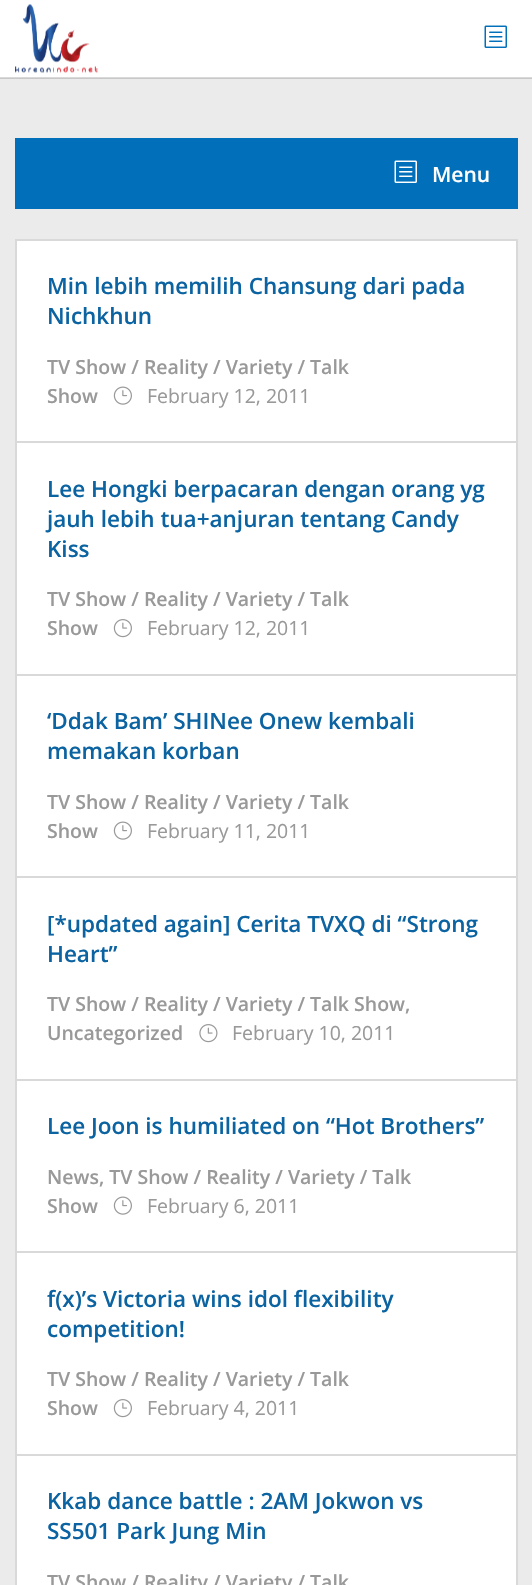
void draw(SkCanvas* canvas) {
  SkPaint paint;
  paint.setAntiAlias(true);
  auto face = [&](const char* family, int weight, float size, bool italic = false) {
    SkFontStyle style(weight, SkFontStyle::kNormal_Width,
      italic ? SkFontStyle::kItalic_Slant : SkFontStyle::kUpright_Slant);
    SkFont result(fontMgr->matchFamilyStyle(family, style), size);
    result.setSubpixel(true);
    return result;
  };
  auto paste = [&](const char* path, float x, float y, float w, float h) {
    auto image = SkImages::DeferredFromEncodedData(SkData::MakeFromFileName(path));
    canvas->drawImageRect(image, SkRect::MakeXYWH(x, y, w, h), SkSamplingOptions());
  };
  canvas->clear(0xffebebeb);
  {
    const struct { float x, y, w, h; SkColor color; } items[] = {
      {0, 78, 532, 1, 0xffc8c8c8},
      {0, 0, 532, 77, 0xffffffff},
      {0, 77, 532, 1, 0xffd9d9d9},
    };
    for (auto [x, y, w, h, color] : items) {
      paint.setColor(color);
      canvas->drawRect(SkRect::MakeXYWH(x, y, w, h), paint);
    }
  }
  paste("img/1.png", 15, 4, 83, 69);
  paste("img/2.png", 484, 25, 23, 23);
  paint.setColor(0xff016fba);
  canvas->drawRect(SkRect::MakeXYWH(15, 138, 503, 71), paint);
  paste("img/3.png", 394, 160, 23, 23);
  paint.setColor(0xffffffff);
  canvas->drawRect(SkRect::MakeXYWH(16, 240, 501, 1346), paint);
  paint.setStroke(true);
  paint.setStrokeWidth(2);
  paint.setColor(0xffd9d9d9);
  canvas->drawRect(SkRect::MakeXYWH(16, 240, 501, 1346), paint);
  paint.setStroke(false);
  canvas->drawRect(SkRect::MakeXYWH(17, 441, 499, 2), paint);
  paste("img/4.png", 113, 386, 19, 19);
  canvas->drawRect(SkRect::MakeXYWH(17, 674, 499, 2), paint);
  paste("img/5.png", 113, 619, 19, 19);
  canvas->drawRect(SkRect::MakeXYWH(17, 876, 499, 2), paint);
  paste("img/4.png", 113, 821, 19, 19);
  canvas->drawRect(SkRect::MakeXYWH(17, 1079, 499, 2), paint);
  paste("img/6.png", 199, 1024, 19, 19);
  canvas->drawRect(SkRect::MakeXYWH(17, 1251, 499, 2), paint);
  paste("img/4.png", 113, 1196, 19, 19);
  canvas->drawRect(SkRect::MakeXYWH(17, 1454, 499, 2), paint);
  paste("img/5.png", 113, 1399, 19, 19);
  auto f0 = face("Open Sans", 600, 21);
  paint.setColor(0xffffffff);
  canvas->drawString("Menu", 432, 182, f0, paint);
  auto f1 = face("Open Sans", 600, 22.5f);
  paint.setColor(0xff0b63a1);
  canvas->drawString("Min lebih memilih Chansung dari pada", 47, 294, f1, paint);
  canvas->drawString("Nichkhun", 47, 324, f1, paint);
  auto f2 = face("Open Sans", 600, 19.5f);
  paint.setColor(0xff999999);
  canvas->drawString("TV Show / Reality / Variety / Talk", 47, 374, f2, paint);
  canvas->drawString("Show", 47, 403, f2, paint);
  auto f3 = face("Open Sans", 400, 19.5f);
  canvas->drawString("February 12, 2011", 147, 403, f3, paint);
  paint.setColor(0xff0b63a1);
  {
    const struct { const char* s; float x, y; } items[] = {
      {"Lee Hongki berpacaran dengan orang yg", 47, 497},
      {"jauh lebih tua+anjuran tentang Candy", 47, 527},
      {"Kiss", 47, 557},
    };
    for (auto [s, x, y] : items) {
      canvas->drawString(s, x, y, f1, paint);
    }
  }
  paint.setColor(0xff999999);
  canvas->drawString("TV Show / Reality / Variety / Talk", 47, 606, f2, paint);
  canvas->drawString("Show", 47, 635, f2, paint);
  canvas->drawString("February 12, 2011", 147, 635, f3, paint);
  paint.setColor(0xff0b63a1);
  canvas->drawString("‘Ddak Bam’ SHINee Onew kembali", 47, 729, f1, paint);
  canvas->drawString("memakan korban", 47, 759, f1, paint);
  paint.setColor(0xff999999);
  canvas->drawString("TV Show / Reality / Variety / Talk", 47, 809, f2, paint);
  canvas->drawString("Show", 47, 838, f2, paint);
  canvas->drawString("February 11, 2011", 147, 838, f3, paint);
  paint.setColor(0xff0b63a1);
  canvas->drawString("[*updated again] Cerita TVXQ di “Strong", 47, 932, f1, paint);
  canvas->drawString("Heart”", 47, 962, f1, paint);
  paint.setColor(0xff999999);
  canvas->drawString("TV Show / Reality / Variety / Talk Show,", 47, 1011, f2, paint);
  canvas->drawString("Uncategorized", 47, 1040, f2, paint);
  canvas->drawString("February 10, 2011", 232, 1040, f3, paint);
  paint.setColor(0xff0b63a1);
  canvas->drawString("Lee Joon is humiliated on “Hot Brothers”", 47, 1134, f1, paint);
  paint.setColor(0xff999999);
  canvas->drawString("News, TV Show / Reality / Variety / Talk", 47, 1184, f2, paint);
  canvas->drawString("Show", 47, 1213, f2, paint);
  canvas->drawString("February 6, 2011", 147, 1213, f3, paint);
  paint.setColor(0xff0b63a1);
  canvas->drawString("f(x)’s Victoria wins idol flexibility", 47, 1307, f1, paint);
  canvas->drawString("competition!", 47, 1337, f1, paint);
  paint.setColor(0xff999999);
  canvas->drawString("TV Show / Reality / Variety / Talk", 47, 1386, f2, paint);
  canvas->drawString("Show", 47, 1415, f2, paint);
  canvas->drawString("February 4, 2011", 147, 1415, f3, paint);
  paint.setColor(0xff0b63a1);
  canvas->drawString("Kkab dance battle : 2AM Jokwon vs", 47, 1509, f1, paint);
  canvas->drawString("SS501 Park Jung Min", 47, 1539, f1, paint);
  paint.setColor(0xff999999);
  canvas->drawString("TV Show / Reality / Variety / Talk", 47, 1589, f2, paint);
}
